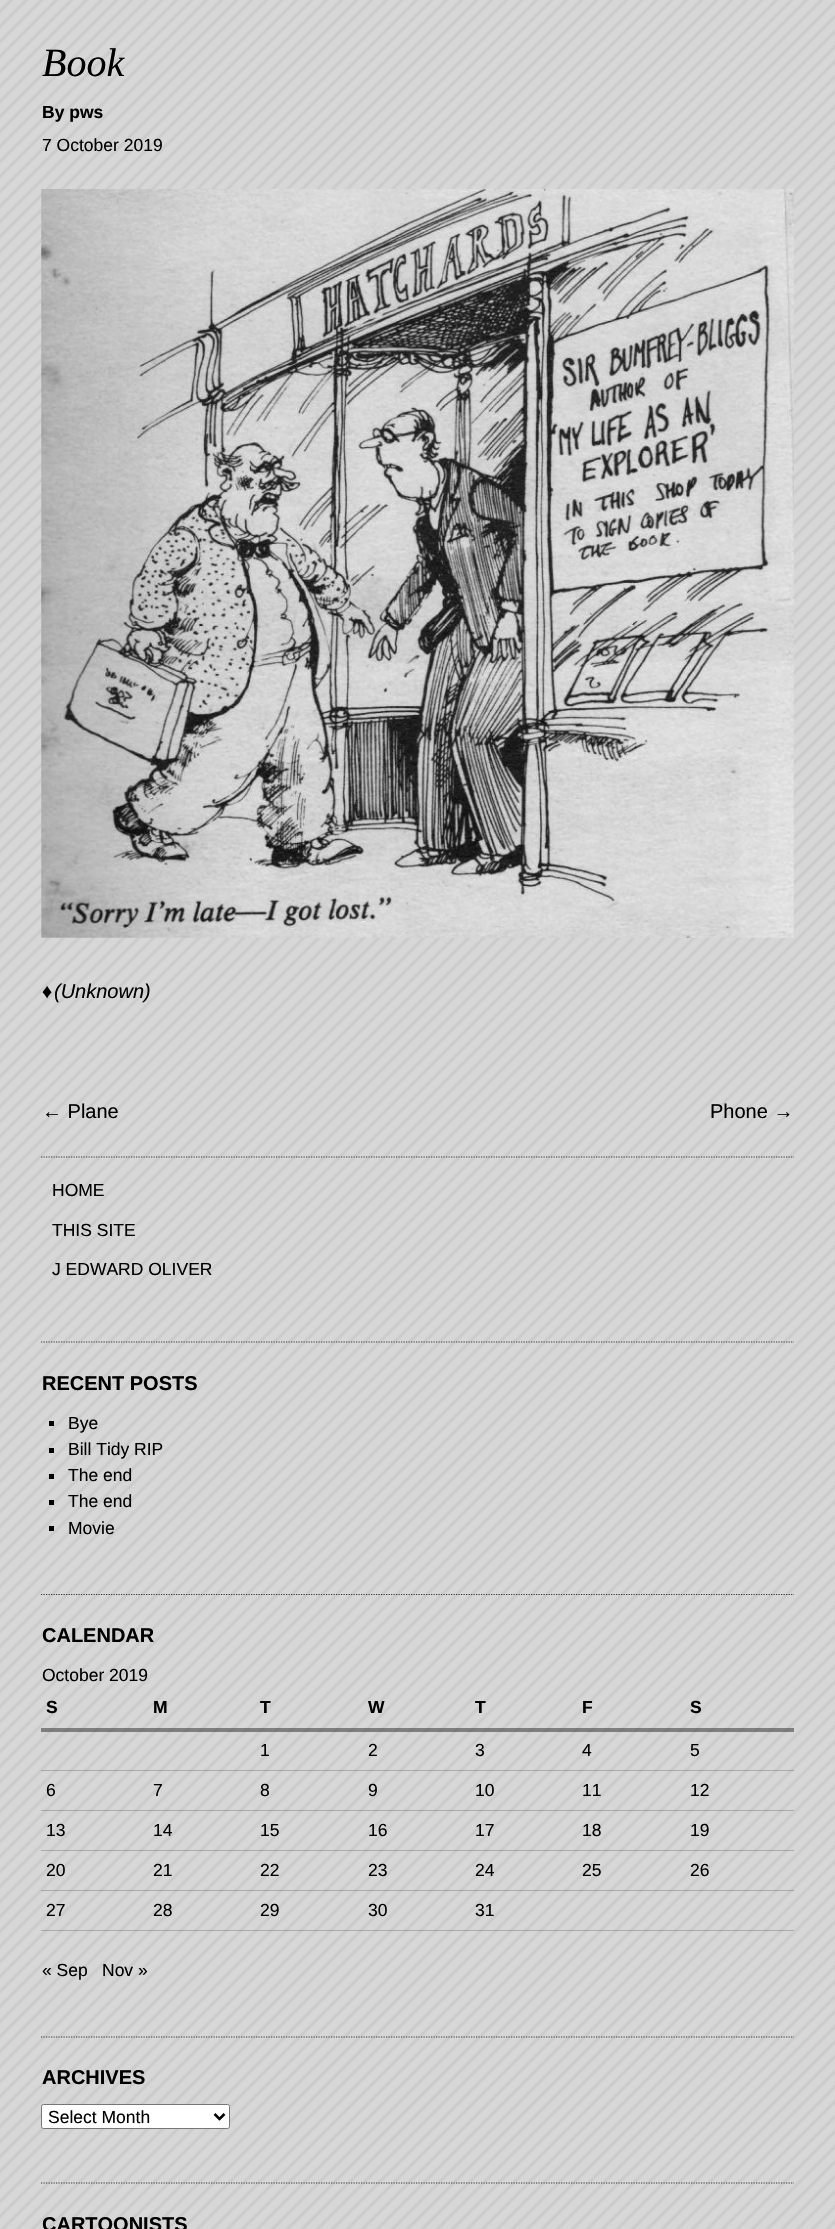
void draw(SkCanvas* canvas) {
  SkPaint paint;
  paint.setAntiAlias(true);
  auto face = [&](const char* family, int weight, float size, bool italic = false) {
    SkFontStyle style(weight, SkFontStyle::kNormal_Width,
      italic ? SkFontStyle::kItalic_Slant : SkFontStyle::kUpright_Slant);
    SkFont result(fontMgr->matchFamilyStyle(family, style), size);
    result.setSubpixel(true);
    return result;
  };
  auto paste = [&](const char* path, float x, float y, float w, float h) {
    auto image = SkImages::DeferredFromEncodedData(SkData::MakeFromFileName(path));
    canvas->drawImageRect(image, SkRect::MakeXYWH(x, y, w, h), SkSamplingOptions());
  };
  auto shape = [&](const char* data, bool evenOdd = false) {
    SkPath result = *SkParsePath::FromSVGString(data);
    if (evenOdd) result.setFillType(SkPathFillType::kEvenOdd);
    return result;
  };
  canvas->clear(0xffffffff);
  paste("img/1.png", 0, 0, 835, 2229);
  paste("img/2.png", 41, 189, 753, 749);
  paint.setStroke(true);
  paint.setStrokeWidth(1.2f);
  paint.setColor(0xff393939);
  paint.setPathEffect(SkDashPathEffect::Make({{1.25f, 1.25f}}, 0));
  canvas->drawPath(shape("M41 1157H794"), paint);
  paint.setPathEffect(nullptr);
  paint.setPathEffect(SkDashPathEffect::Make({{1.25f, 1.25f}}, 0));
  canvas->drawPath(shape("M41 1342H794"), paint);
  paint.setPathEffect(nullptr);
  paint.setStroke(false);
  {
    const struct { float x, y, w, h; SkColor color; } items[] = {
      {49, 1421, 5, 5, 0xff000000},
      {49, 1448, 5, 5, 0xff000000},
      {49, 1474, 5, 5, 0xff000000},
      {49, 1500, 5, 5, 0xff000000},
      {49, 1526, 5, 5, 0xff000000},
    };
    for (auto [x, y, w, h, color] : items) {
      paint.setColor(color);
      canvas->drawRect(SkRect::MakeXYWH(x, y, w, h), paint);
    }
  }
  paint.setStroke(true);
  paint.setColor(0xff393939);
  paint.setPathEffect(SkDashPathEffect::Make({{1.25f, 1.25f}}, 0));
  canvas->drawPath(shape("M41 1594.5H794"), paint);
  paint.setPathEffect(nullptr);
  paint.setStroke(false);
  {
    const struct { float x, y, w, h; SkColor color; } items[] = {
      {41, 1728, 108, 4, 0x80272727},
      {149, 1728, 107, 4, 0x80272727},
      {256, 1728, 108, 4, 0x80272727},
      {364, 1728, 107, 4, 0x80272727},
      {471, 1728, 108, 4, 0x80272727},
      {579, 1728, 107, 4, 0x80272727},
      {686, 1728, 108, 4, 0x80272727},
      {256, 1770, 108, 1, 0x40272727},
      {364, 1770, 107, 1, 0x40272727},
      {471, 1770, 108, 1, 0x40272727},
      {579, 1770, 107, 1, 0x40272727},
      {686, 1770, 108, 1, 0x40272727},
      {41, 1770, 215, 1, 0x40272727},
      {41, 1810, 108, 1, 0x40272727},
      {149, 1810, 107, 1, 0x40272727},
      {256, 1810, 108, 1, 0x40272727},
      {364, 1810, 107, 1, 0x40272727},
      {471, 1810, 108, 1, 0x40272727},
      {579, 1810, 107, 1, 0x40272727},
      {686, 1810, 108, 1, 0x40272727},
      {41, 1850, 108, 1, 0x40272727},
      {149, 1850, 107, 1, 0x40272727},
      {256, 1850, 108, 1, 0x40272727},
      {364, 1850, 107, 1, 0x40272727},
      {471, 1850, 108, 1, 0x40272727},
      {579, 1850, 107, 1, 0x40272727},
      {686, 1850, 108, 1, 0x40272727},
      {41, 1890, 108, 1, 0x40272727},
      {149, 1890, 107, 1, 0x40272727},
      {256, 1890, 108, 1, 0x40272727},
      {364, 1890, 107, 1, 0x40272727},
      {471, 1890, 108, 1, 0x40272727},
      {579, 1890, 107, 1, 0x40272727},
      {686, 1890, 108, 1, 0x40272727},
      {41, 1930, 108, 1, 0x40272727},
      {149, 1930, 107, 1, 0x40272727},
      {256, 1930, 108, 1, 0x40272727},
      {364, 1930, 107, 1, 0x40272727},
      {471, 1930, 108, 1, 0x40272727},
      {579, 1930, 215, 1, 0x40272727},
    };
    for (auto [x, y, w, h, color] : items) {
      paint.setColor(color);
      canvas->drawRect(SkRect::MakeXYWH(x, y, w, h), paint);
    }
  }
  paint.setStroke(true);
  paint.setColor(0xff393939);
  paint.setPathEffect(SkDashPathEffect::Make({{1.25f, 1.25f}}, 0));
  canvas->drawPath(shape("M41 2037H794"), paint);
  paint.setPathEffect(nullptr);
  paint.setStroke(false);
  paint.setColor(0xffffffff);
  canvas->drawRoundRect(SkRect::MakeXYWH(41.5f, 2104.5f, 188, 24), 2, 2, paint);
  paint.setStroke(true);
  paint.setStrokeWidth(1);
  paint.setColor(0xff767676);
  canvas->drawRoundRect(SkRect::MakeXYWH(41.5f, 2104.5f, 188, 24), 2, 2, paint);
  paint.setStrokeWidth(2.5f);
  paint.setColor(0xff000000);
  canvas->drawPath(shape("M214.5 2114L219.5 2119L224.5 2114"), paint);
  paint.setStrokeWidth(1.2f);
  paint.setColor(0xff393939);
  paint.setPathEffect(SkDashPathEffect::Make({{1.25f, 1.25f}}, 0));
  canvas->drawPath(shape("M41 2183H794"), paint);
  paint.setPathEffect(nullptr);
  auto f0 = face("Liberation Serif", 400, 40, true);
  paint.setStroke(false);
  paint.setColor(0xff000000);
  canvas->drawString("Book", 42, 76, f0, paint);
  auto f1 = face("Liberation Sans", 700, 17.5f);
  canvas->drawString("By pws", 42, 118, f1, paint);
  auto f2 = face("Liberation Sans", 400, 17.5f);
  canvas->drawString("7 October 2019", 42, 151, f2, paint);
  auto f3 = face("Liberation Sans", 400, 20, true);
  canvas->drawString("♦", 42, 998, f3, paint);
  canvas->drawString("(Unknown)", 54, 998, f3, paint);
  auto f4 = face("Liberation Sans", 400, 20);
  canvas->drawString("← Plane", 42, 1118, f4, paint);
  canvas->drawString("Phone →", 710, 1118, f4, paint);
  {
    const struct { const char* s; float x, y; } items[] = {
      {"HOME", 52, 1196},
      {"THIS SITE", 52, 1236},
      {"J EDWARD OLIVER", 52, 1275},
    };
    for (auto [s, x, y] : items) {
      canvas->drawString(s, x, y, f2, paint);
    }
  }
  auto f5 = face("Liberation Sans", 700, 20);
  canvas->drawString("RECENT POSTS", 42, 1390, f5, paint);
  {
    const struct { const char* s; float x, y; } items[] = {
      {"Bye", 68, 1429},
      {"Bill Tidy RIP", 68, 1455},
      {"The end", 68, 1481},
      {"The end", 68, 1507},
      {"Movie", 68, 1534},
    };
    for (auto [s, x, y] : items) {
      canvas->drawString(s, x, y, f2, paint);
    }
  }
  canvas->drawString("CALENDAR", 42, 1642, f5, paint);
  canvas->drawString("October 2019", 42, 1681, f2, paint);
  {
    const struct { const char* s; float x, y; } items[] = {
      {"S", 46, 1713},
      {"M", 153, 1713},
      {"T", 260, 1713},
      {"W", 368, 1713},
      {"T", 475, 1713},
      {"F", 582, 1713},
      {"S", 690, 1713},
    };
    for (auto [s, x, y] : items) {
      canvas->drawString(s, x, y, f1, paint);
    }
  }
  {
    const struct { const char* s; float x, y; } items[] = {
      {"1", 260, 1756},
      {"2", 368, 1756},
      {"3", 475, 1756},
      {"4", 582, 1756},
      {"5", 690, 1756},
      {"6", 46, 1796},
      {"7", 153, 1796},
      {"8", 260, 1796},
      {"9", 368, 1796},
      {"10", 475, 1796},
      {"11", 582, 1796},
      {"12", 690, 1796},
      {"13", 46, 1836},
      {"14", 153, 1836},
      {"15", 260, 1836},
      {"16", 368, 1836},
      {"17", 475, 1836},
      {"18", 582, 1836},
      {"19", 690, 1836},
      {"20", 46, 1876},
      {"21", 153, 1876},
      {"22", 260, 1876},
      {"23", 368, 1876},
      {"24", 475, 1876},
      {"25", 582, 1876},
      {"26", 690, 1876},
      {"27", 46, 1916},
      {"28", 153, 1916},
      {"29", 260, 1916},
      {"30", 368, 1916},
      {"31", 475, 1916},
      {"« Sep", 42, 1976},
      {"Nov »", 102, 1976},
    };
    for (auto [s, x, y] : items) {
      canvas->drawString(s, x, y, f2, paint);
    }
  }
  canvas->drawString("ARCHIVES", 42, 2084, f5, paint);
  canvas->drawString("Select Month", 48, 2123, f2, paint);
  canvas->drawString("CARTOONISTS", 42, 2231, f5, paint);
}
